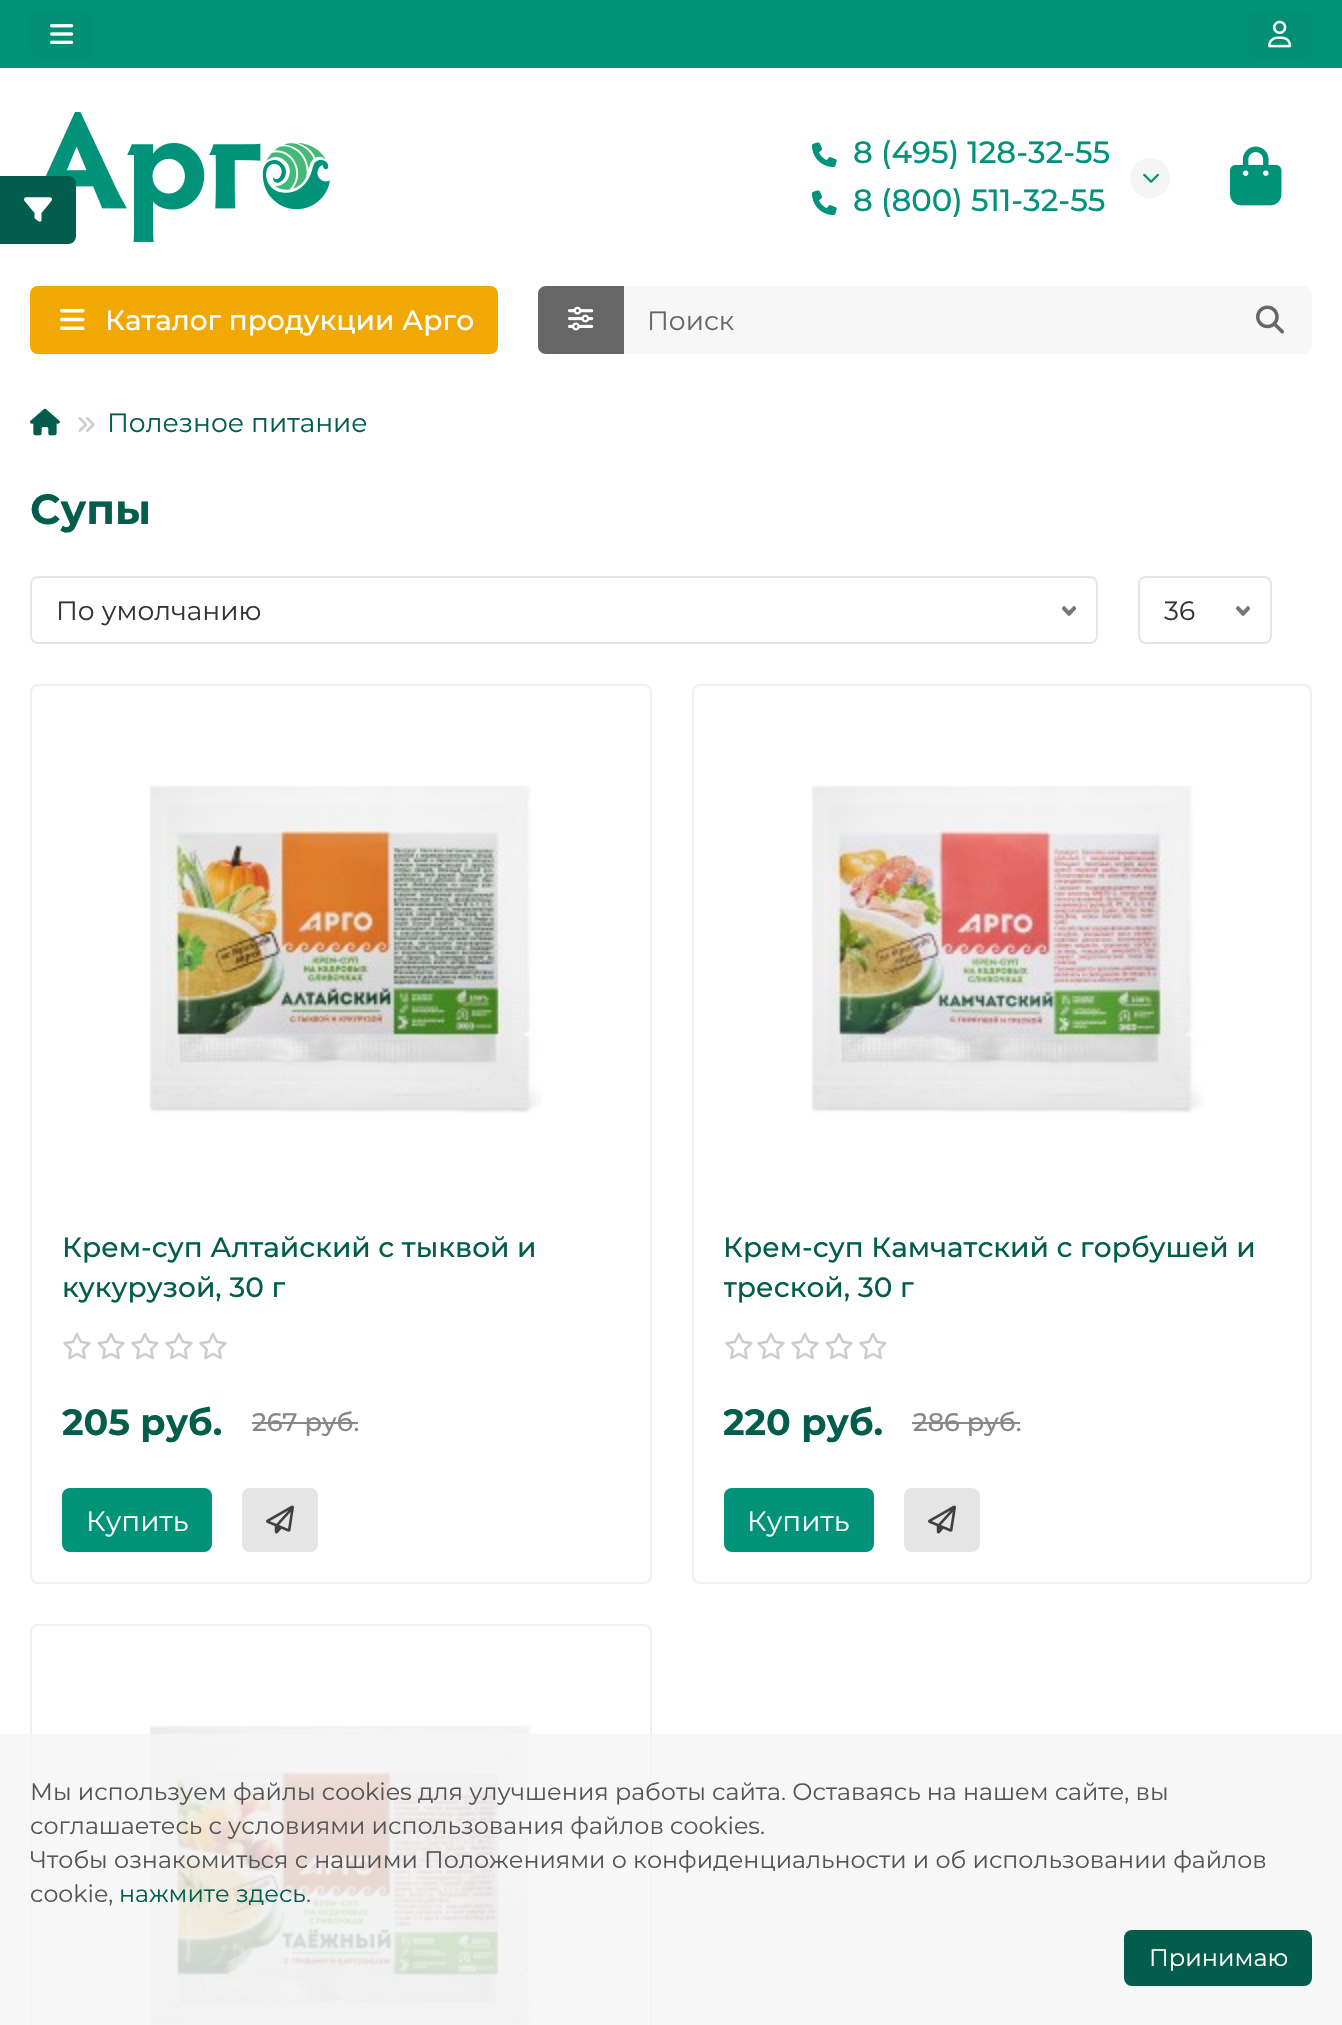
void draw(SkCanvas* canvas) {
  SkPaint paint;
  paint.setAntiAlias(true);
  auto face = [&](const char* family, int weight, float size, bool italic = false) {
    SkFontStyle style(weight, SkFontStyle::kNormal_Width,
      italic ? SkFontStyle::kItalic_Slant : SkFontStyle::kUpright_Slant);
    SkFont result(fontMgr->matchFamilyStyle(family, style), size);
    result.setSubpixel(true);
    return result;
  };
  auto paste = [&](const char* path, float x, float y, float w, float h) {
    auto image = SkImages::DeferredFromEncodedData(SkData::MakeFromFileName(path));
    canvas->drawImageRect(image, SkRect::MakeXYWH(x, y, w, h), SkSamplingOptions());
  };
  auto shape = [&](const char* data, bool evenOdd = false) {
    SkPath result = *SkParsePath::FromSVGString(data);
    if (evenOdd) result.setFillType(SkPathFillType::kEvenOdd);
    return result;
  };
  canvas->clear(0xffffffff);
  paste("img/4.png", 45, 112, 285, 130);
  paint.setColor(0xff025d4d);
  canvas->drawPath(shape("M0 176H68C72.5 176 76 179.5 76 184V236C76 240.5 72.5 244 68 244H0Z"), paint);
  paste("img/1.png", 24, 197, 28, 25);
  paint.setColor(0xff019379);
  canvas->drawRect(SkRect::MakeXYWH(0, 0, 1342, 68), paint);
  paint.setColor(0xff018f75);
  canvas->drawRoundRect(SkRect::MakeXYWH(30, 10, 64, 48), 8, 8, paint);
  paste("img/2.png", 50, 24, 24, 20);
  canvas->drawRoundRect(SkRect::MakeXYWH(1248, 10, 64, 48), 8, 8, paint);
  paste("img/3.png", 1268, 20, 24, 28);
  paste("img/5.png", 812, 142, 25, 26);
  paint.setColor(0xfff5f5f5);
  canvas->drawCircle(1150, 178, 20, paint);
  paste("img/6.png", 1143, 173, 16, 10);
  paste("img/5.png", 812, 190, 25, 26);
  paste("img/7.png", 1230, 146, 52, 60);
  paint.setColor(0xfff2a803);
  canvas->drawRoundRect(SkRect::MakeXYWH(30, 286, 468, 68), 8, 8, paint);
  paste("img/8.png", 60, 309, 25, 21);
  paint.setColor(0xff666666);
  canvas->drawPath(shape("M546 286H624V354H546C541.5 354 538 350.5 538 346V294C538 289.5 541.5 286 546 286Z"), paint);
  paste("img/9.png", 568, 306, 26, 25);
  paint.setColor(0xfff7f7f7);
  canvas->drawPath(shape("M624 286H1304C1308.5 286 1312 289.5 1312 294V346C1312 350.5 1308.5 354 1304 354H624Z"), paint);
  paste("img/10.png", 1256, 305, 28, 29);
  paste("img/11.png", 30, 408, 30, 28);
  paste("img/12.png", 78, 417, 17, 15);
  paste("img/13.png", 1062, 606, 14, 10);
  paint.setStroke(true);
  paint.setStrokeWidth(2);
  paint.setColor(0xffe6e6e6);
  canvas->drawRoundRect(SkRect::MakeXYWH(31, 577, 1066, 66), 7, 7, paint);
  paste("img/14.png", 1236, 606, 14, 10);
  canvas->drawRoundRect(SkRect::MakeXYWH(1139, 577, 132, 66), 7, 7, paint);
  paint.setColor(0xfff0f0f0);
  canvas->drawRoundRect(SkRect::MakeXYWH(31, 685, 620, 898), 7, 7, paint);
  paste("img/15.png", 149, 785, 393, 328);
  paste("img/16.png", 63, 1332, 28, 28);
  paste("img/16.png", 97, 1332, 28, 28);
  paste("img/16.png", 131, 1332, 28, 28);
  paste("img/16.png", 165, 1332, 28, 28);
  paste("img/16.png", 199, 1332, 28, 28);
  paint.setStroke(false);
  paint.setColor(0xff888888);
  canvas->drawRect(SkRect::MakeXYWH(252, 1422, 106, 2), paint);
  paint.setColor(0xff019379);
  canvas->drawRoundRect(SkRect::MakeXYWH(62, 1488, 150, 64), 8, 8, paint);
  paint.setColor(0xffe5e5e5);
  canvas->drawRoundRect(SkRect::MakeXYWH(242, 1488, 76, 64), 8, 8, paint);
  paste("img/17.png", 266, 1505, 28, 29);
  paint.setStroke(true);
  paint.setColor(0xfff0f0f0);
  canvas->drawRoundRect(SkRect::MakeXYWH(693, 685, 618, 898), 7, 7, paint);
  paste("img/18.png", 811, 785, 393, 328);
  paste("img/16.png", 725, 1332, 28, 28);
  paste("img/16.png", 757, 1332, 28, 28);
  paste("img/16.png", 791, 1332, 28, 28);
  paste("img/16.png", 825, 1332, 28, 28);
  paste("img/16.png", 859, 1332, 28, 28);
  paint.setStroke(false);
  paint.setColor(0xff888888);
  canvas->drawRect(SkRect::MakeXYWH(912, 1422, 108, 2), paint);
  paint.setColor(0xff019379);
  canvas->drawRoundRect(SkRect::MakeXYWH(724, 1488, 150, 64), 8, 8, paint);
  paint.setColor(0xffe5e5e5);
  canvas->drawRoundRect(SkRect::MakeXYWH(904, 1488, 76, 64), 8, 8, paint);
  paste("img/17.png", 928, 1505, 28, 29);
  paint.setStroke(true);
  paint.setColor(0xfff0f0f0);
  canvas->drawRoundRect(SkRect::MakeXYWH(31, 1625, 620, 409), 7, 7, paint);
  paste("img/19.png", 149, 1725, 382, 300);
  paint.setStroke(false);
  paint.setColor(0xccf5f5f5);
  canvas->drawRect(SkRect::MakeXYWH(0, 1734, 1342, 291), paint);
  paint.setColor(0xff025d4d);
  canvas->drawRoundRect(SkRect::MakeXYWH(1124, 1930, 188, 56), 8, 8, paint);
  auto f0 = face("Montserrat", 500, 30.75f);
  paint.setColor(0xff019379);
  canvas->drawString("8 (495) 128-32-55", 853, 163, f0, paint);
  canvas->drawString("8 (800) 511-32-55", 853, 211, f0, paint);
  auto f1 = face("Montserrat", 500, 28);
  paint.setColor(0xffffffff);
  canvas->drawString("Каталог продукции Арго", 105, 330, f1, paint);
  auto f2 = face("Montserrat", 400, 26.5f);
  paint.setColor(0xff666666);
  canvas->drawString("Поиск", 647, 330, f2, paint);
  paint.setColor(0xff025d4d);
  canvas->drawString("Полезное питание", 107, 432, f2, paint);
  auto f3 = face("Montserrat", 700, 42);
  canvas->drawString("Супы", 30, 524, f3, paint);
  paint.setColor(0xff333333);
  canvas->drawString("По умолчанию", 56, 620, f2, paint);
  canvas->drawString("36", 1164, 620, f2, paint);
  paint.setColor(0xff025d4d);
  canvas->drawString("Крем-суп Алтайский с тыквой и", 62, 1257, f1, paint);
  canvas->drawString("кукурузой, 30 г", 62, 1297, f1, paint);
  auto f4 = face("Montserrat", 700, 36.5f);
  canvas->drawString("205 руб.", 62, 1435, f4, paint);
  auto f5 = face("Montserrat", 500, 25.5f);
  paint.setColor(0xff888888);
  canvas->drawString("267 руб.", 252, 1431, f5, paint);
  auto f6 = face("Montserrat", 400, 28);
  paint.setColor(0xffffffff);
  canvas->drawString("Купить", 86, 1531, f6, paint);
  paint.setColor(0xff025d4d);
  canvas->drawString("Крем-суп Камчатский с горбушей и", 723, 1257, f1, paint);
  canvas->save();
  canvas->clipRect(SkRect::MakeXYWH(724, 1226, 556, 326));
  canvas->drawString("треской, 30 г", 723, 1297, f1, paint);
  canvas->drawString("220 руб.", 723, 1435, f4, paint);
  canvas->restore();
  paint.setColor(0xff888888);
  canvas->drawString("286 руб.", 913, 1431, f5, paint);
  paint.setColor(0xffffffff);
  canvas->drawString("Купить", 747, 1531, f6, paint);
  auto f7 = face("Montserrat", 400, 23.8f);
  paint.setColor(0xff555555);
  {
    const struct { const char* s; float x, y; } items[] = {
      {"Мы используем файлы cookies для улучшения работы сайта. Оставаясь на нашем сайте, вы", 30, 1800},
      {"соглашаетесь с условиями использования файлов cookies.", 30, 1834},
      {"Чтобы ознакомиться с нашими Положениями о конфиденциальности и об использовании файлов", 30, 1868},
      {"cookie,", 30, 1902},
    };
    for (auto [s, x, y] : items) {
      canvas->drawString(s, x, y, f7, paint);
    }
  }
  paint.setColor(0xff025d4d);
  canvas->drawString("нажмите здесь", 119, 1902, f7, paint);
  paint.setColor(0xff555555);
  canvas->drawString(".", 306, 1902, f7, paint);
  auto f8 = face("Montserrat", 400, 24);
  paint.setColor(0xffffffff);
  canvas->drawString("Принимаю", 1149, 1966, f8, paint);
}
